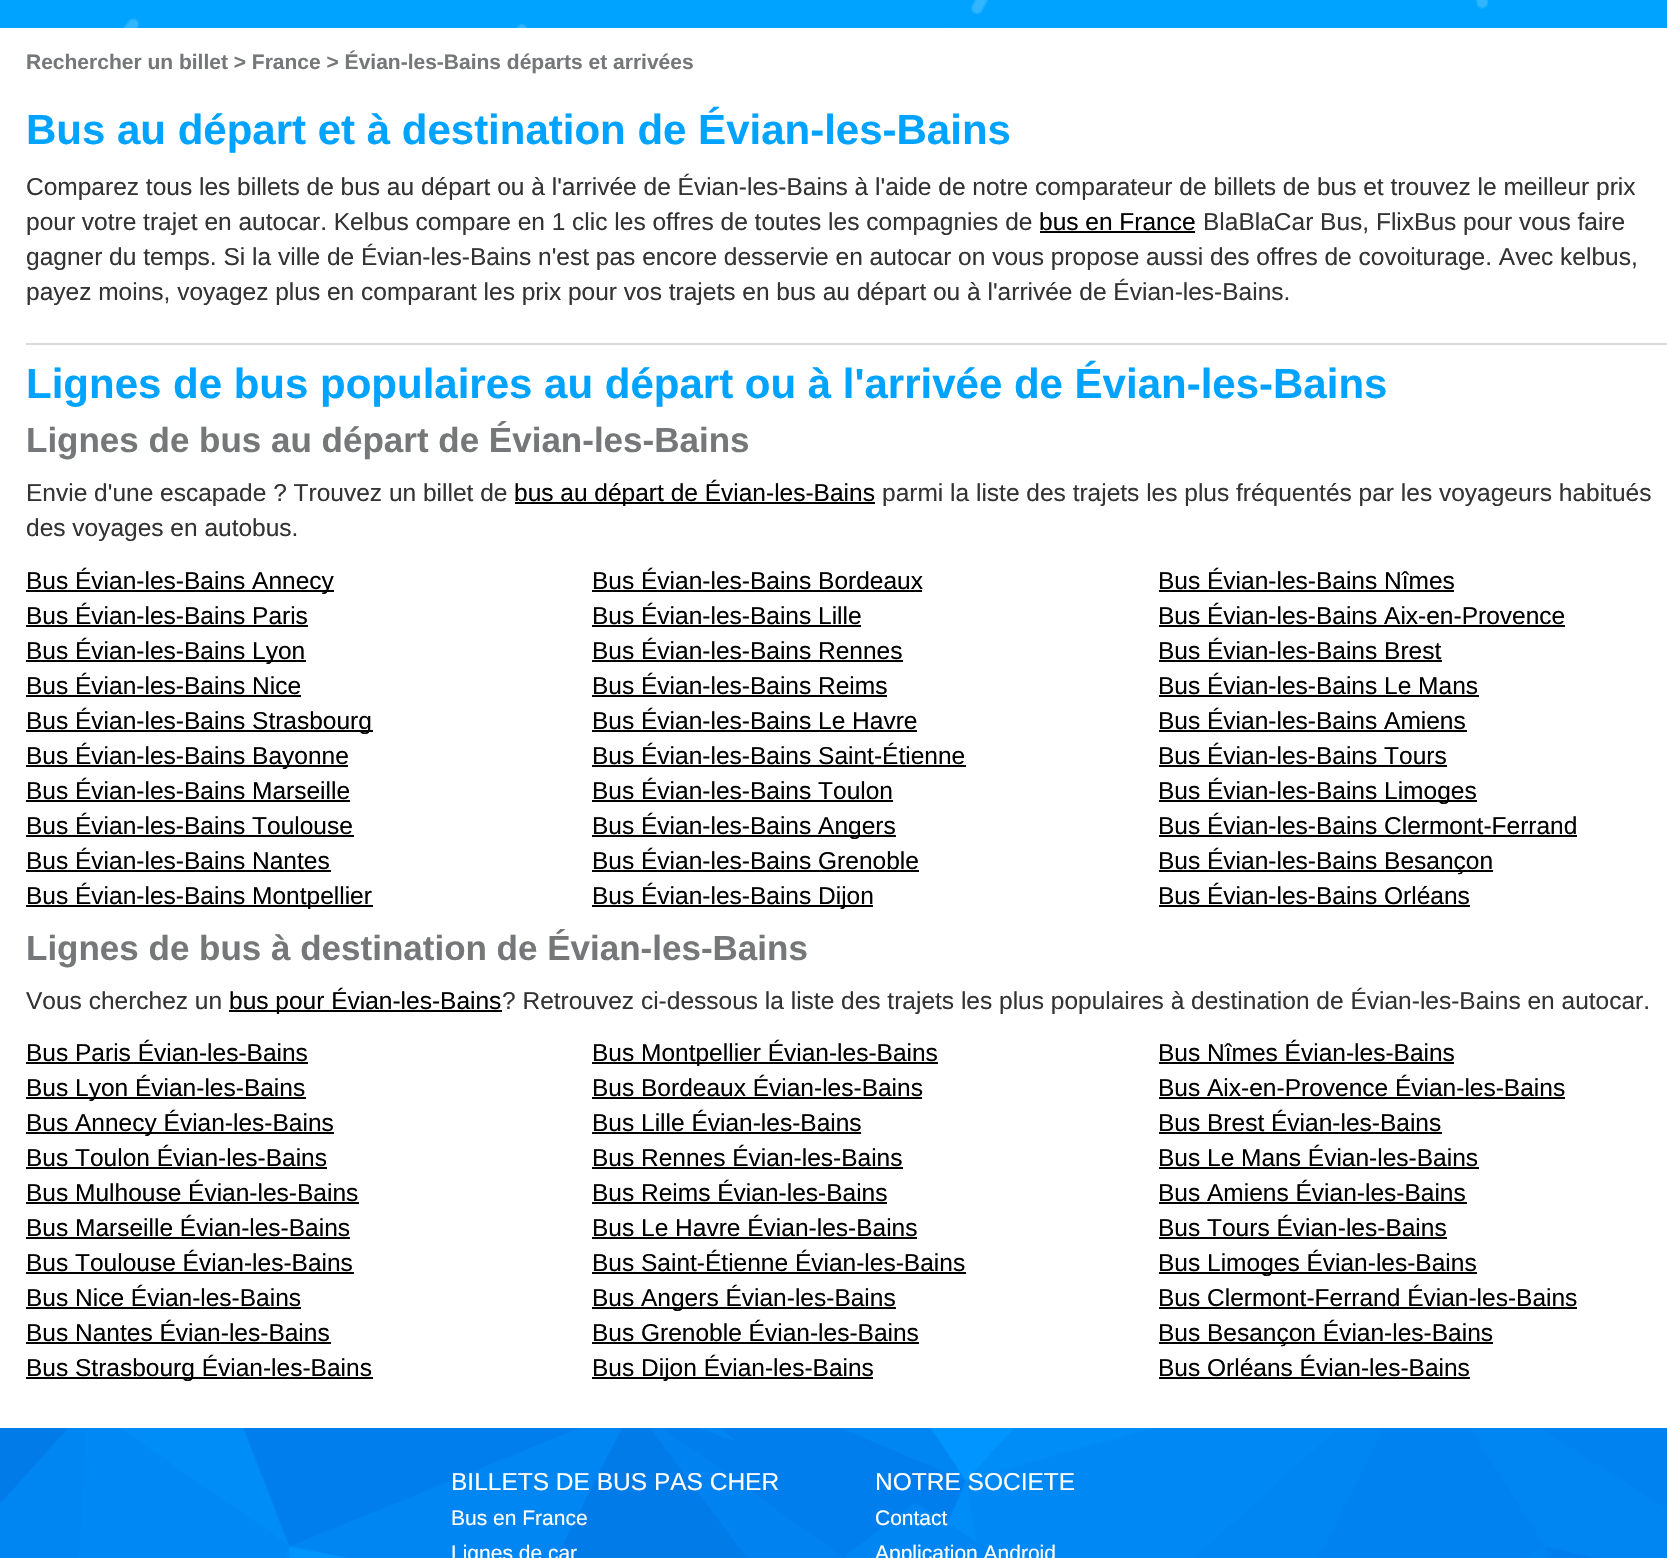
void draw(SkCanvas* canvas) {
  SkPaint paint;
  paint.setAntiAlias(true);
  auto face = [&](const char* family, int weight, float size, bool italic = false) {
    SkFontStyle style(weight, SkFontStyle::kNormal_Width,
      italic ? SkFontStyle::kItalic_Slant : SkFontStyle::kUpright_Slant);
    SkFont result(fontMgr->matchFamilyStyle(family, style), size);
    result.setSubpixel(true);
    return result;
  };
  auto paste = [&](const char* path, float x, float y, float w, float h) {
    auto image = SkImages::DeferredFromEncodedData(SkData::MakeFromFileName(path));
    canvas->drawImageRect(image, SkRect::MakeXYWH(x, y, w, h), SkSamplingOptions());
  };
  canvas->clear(0xffffffff);
  paint.setColor(0xff00a3ff);
  canvas->drawRect(SkRect::MakeXYWH(0, 0, 1667, 28), paint);
  paste("img/1.png", 122, 0, 1366, 28);
  {
    const struct { float x, y, w, h; SkColor color; } items[] = {
      {1040, 231, 155, 2, 0xff000000},
      {26, 343, 1641, 2, 0xffd9d9d9},
      {515, 502, 360, 2, 0xff000000},
      {26, 590, 308, 2, 0xff000000},
      {26, 625, 282, 2, 0xff000000},
      {26, 660, 280, 2, 0xff000000},
      {26, 695, 275, 2, 0xff000000},
      {26, 730, 347, 2, 0xff000000},
      {26, 765, 322, 2, 0xff000000},
      {26, 800, 324, 2, 0xff000000},
      {26, 835, 328, 2, 0xff000000},
      {26, 870, 305, 2, 0xff000000},
      {26, 905, 347, 2, 0xff000000},
      {592, 590, 330, 2, 0xff000000},
      {592, 625, 269, 2, 0xff000000},
      {592, 660, 311, 2, 0xff000000},
      {592, 695, 295, 2, 0xff000000},
      {592, 730, 325, 2, 0xff000000},
      {592, 765, 374, 2, 0xff000000},
      {592, 800, 301, 2, 0xff000000},
      {592, 835, 304, 2, 0xff000000},
      {592, 870, 327, 2, 0xff000000},
      {592, 905, 281, 2, 0xff000000},
      {1159, 590, 295, 2, 0xff000000},
      {1159, 625, 406, 2, 0xff000000},
      {1159, 660, 283, 2, 0xff000000},
      {1159, 695, 320, 2, 0xff000000},
      {1159, 730, 308, 2, 0xff000000},
      {1159, 765, 288, 2, 0xff000000},
      {1159, 800, 318, 2, 0xff000000},
      {1159, 835, 418, 2, 0xff000000},
      {1159, 870, 334, 2, 0xff000000},
      {1159, 905, 311, 2, 0xff000000},
      {229, 1010, 273, 2, 0xff000000},
      {26, 1062, 282, 2, 0xff000000},
      {26, 1097, 280, 2, 0xff000000},
      {26, 1132, 308, 2, 0xff000000},
      {26, 1167, 301, 2, 0xff000000},
      {26, 1202, 333, 2, 0xff000000},
      {26, 1237, 324, 2, 0xff000000},
      {26, 1272, 328, 2, 0xff000000},
      {26, 1307, 275, 2, 0xff000000},
      {26, 1342, 305, 2, 0xff000000},
      {26, 1377, 347, 2, 0xff000000},
      {592, 1062, 346, 2, 0xff000000},
      {592, 1097, 330, 2, 0xff000000},
      {592, 1132, 269, 2, 0xff000000},
      {592, 1167, 311, 2, 0xff000000},
      {592, 1202, 295, 2, 0xff000000},
      {592, 1237, 325, 2, 0xff000000},
      {592, 1272, 374, 2, 0xff000000},
      {592, 1307, 304, 2, 0xff000000},
      {592, 1342, 327, 2, 0xff000000},
      {592, 1377, 281, 2, 0xff000000},
      {1159, 1062, 295, 2, 0xff000000},
      {1159, 1097, 406, 2, 0xff000000},
      {1159, 1132, 283, 2, 0xff000000},
      {1159, 1167, 320, 2, 0xff000000},
      {1159, 1202, 308, 2, 0xff000000},
      {1159, 1237, 288, 2, 0xff000000},
      {1159, 1272, 318, 2, 0xff000000},
      {1159, 1307, 418, 2, 0xff000000},
      {1159, 1342, 334, 2, 0xff000000},
      {1159, 1377, 311, 2, 0xff000000},
    };
    for (auto [x, y, w, h, color] : items) {
      paint.setColor(color);
      canvas->drawRect(SkRect::MakeXYWH(x, y, w, h), paint);
    }
  }
  paste("img/2.png", 0, 1428, 1667, 130);
  auto f0 = face("Liberation Sans", 700, 21);
  paint.setColor(0xff767779);
  canvas->drawString("Rechercher un billet > France > Évian-les-Bains départs et arrivées", 26, 69, f0, paint);
  auto f1 = face("Liberation Sans", 700, 42);
  paint.setColor(0xff00a3ff);
  canvas->drawString("Bus au départ et à destination de Évian-les-Bains", 26, 144, f1, paint);
  auto f2 = face("Liberation Sans", 400, 24.5f);
  paint.setColor(0xff333333);
  canvas->drawString("Comparez tous les billets de bus au départ ou à l'arrivée de Évian-les-Bains à l'aide de notre comparateur de billets de bus et trouvez le meilleur prix", 26, 195, f2, paint);
  canvas->drawString("pour votre trajet en autocar. Kelbus compare en 1 clic les offres de toutes les compagnies de", 26, 230, f2, paint);
  paint.setColor(0xff000000);
  canvas->drawString("bus en France", 1039, 230, f2, paint);
  paint.setColor(0xff333333);
  {
    const struct { const char* s; float x, y; } items[] = {
      {"BlaBlaCar Bus, FlixBus pour vous faire", 1203, 230},
      {"gagner du temps. Si la ville de Évian-les-Bains n'est pas encore desservie en autocar on vous propose aussi des offres de covoiturage. Avec kelbus,", 26, 265},
      {"payez moins, voyagez plus en comparant les prix pour vos trajets en bus au départ ou à l'arrivée de Évian-les-Bains.", 26, 300},
    };
    for (auto [s, x, y] : items) {
      canvas->drawString(s, x, y, f2, paint);
    }
  }
  paint.setColor(0xff00a3ff);
  canvas->drawString("Lignes de bus populaires au départ ou à l'arrivée de Évian-les-Bains", 26, 398, f1, paint);
  auto f3 = face("Liberation Sans", 700, 35);
  paint.setColor(0xff767779);
  canvas->drawString("Lignes de bus au départ de Évian-les-Bains", 26, 452, f3, paint);
  paint.setColor(0xff333333);
  canvas->drawString("Envie d'une escapade ? Trouvez un billet de", 26, 501, f2, paint);
  paint.setColor(0xff000000);
  canvas->drawString("bus au départ de Évian-les-Bains", 514, 501, f2, paint);
  paint.setColor(0xff333333);
  canvas->drawString("parmi la liste des trajets les plus fréquentés par les voyageurs habitués", 882, 501, f2, paint);
  canvas->drawString("des voyages en autobus.", 26, 536, f2, paint);
  paint.setColor(0xff000000);
  {
    const struct { const char* s; float x, y; } items[] = {
      {"Bus Évian-les-Bains Annecy", 26, 589},
      {"Bus Évian-les-Bains Paris", 26, 624},
      {"Bus Évian-les-Bains Lyon", 26, 659},
      {"Bus Évian-les-Bains Nice", 26, 694},
      {"Bus Évian-les-Bains Strasbourg", 26, 729},
      {"Bus Évian-les-Bains Bayonne", 26, 764},
      {"Bus Évian-les-Bains Marseille", 26, 799},
      {"Bus Évian-les-Bains Toulouse", 26, 834},
      {"Bus Évian-les-Bains Nantes", 26, 869},
      {"Bus Évian-les-Bains Montpellier", 26, 904},
      {"Bus Évian-les-Bains Bordeaux", 592, 589},
      {"Bus Évian-les-Bains Lille", 592, 624},
      {"Bus Évian-les-Bains Rennes", 592, 659},
      {"Bus Évian-les-Bains Reims", 592, 694},
      {"Bus Évian-les-Bains Le Havre", 592, 729},
      {"Bus Évian-les-Bains Saint-Étienne", 592, 764},
      {"Bus Évian-les-Bains Toulon", 592, 799},
      {"Bus Évian-les-Bains Angers", 592, 834},
      {"Bus Évian-les-Bains Grenoble", 592, 869},
      {"Bus Évian-les-Bains Dijon", 592, 904},
      {"Bus Évian-les-Bains Nîmes", 1158, 589},
      {"Bus Évian-les-Bains Aix-en-Provence", 1158, 624},
      {"Bus Évian-les-Bains Brest", 1158, 659},
      {"Bus Évian-les-Bains Le Mans", 1158, 694},
      {"Bus Évian-les-Bains Amiens", 1158, 729},
      {"Bus Évian-les-Bains Tours", 1158, 764},
      {"Bus Évian-les-Bains Limoges", 1158, 799},
      {"Bus Évian-les-Bains Clermont-Ferrand", 1158, 834},
      {"Bus Évian-les-Bains Besançon", 1158, 869},
      {"Bus Évian-les-Bains Orléans", 1158, 904},
    };
    for (auto [s, x, y] : items) {
      canvas->drawString(s, x, y, f2, paint);
    }
  }
  paint.setColor(0xff767779);
  canvas->drawString("Lignes de bus à destination de Évian-les-Bains", 26, 960, f3, paint);
  paint.setColor(0xff333333);
  canvas->drawString("Vous cherchez un", 26, 1009, f2, paint);
  paint.setColor(0xff000000);
  canvas->drawString("bus pour Évian-les-Bains", 229, 1009, f2, paint);
  paint.setColor(0xff333333);
  canvas->drawString("? Retrouvez ci-dessous la liste des trajets les plus populaires à destination de Évian-les-Bains en autocar.", 502, 1009, f2, paint);
  paint.setColor(0xff000000);
  {
    const struct { const char* s; float x, y; } items[] = {
      {"Bus Paris Évian-les-Bains", 26, 1061},
      {"Bus Lyon Évian-les-Bains", 26, 1096},
      {"Bus Annecy Évian-les-Bains", 26, 1131},
      {"Bus Toulon Évian-les-Bains", 26, 1166},
      {"Bus Mulhouse Évian-les-Bains", 26, 1201},
      {"Bus Marseille Évian-les-Bains", 26, 1236},
      {"Bus Toulouse Évian-les-Bains", 26, 1271},
      {"Bus Nice Évian-les-Bains", 26, 1306},
      {"Bus Nantes Évian-les-Bains", 26, 1341},
      {"Bus Strasbourg Évian-les-Bains", 26, 1376},
      {"Bus Montpellier Évian-les-Bains", 592, 1061},
      {"Bus Bordeaux Évian-les-Bains", 592, 1096},
      {"Bus Lille Évian-les-Bains", 592, 1131},
      {"Bus Rennes Évian-les-Bains", 592, 1166},
      {"Bus Reims Évian-les-Bains", 592, 1201},
      {"Bus Le Havre Évian-les-Bains", 592, 1236},
      {"Bus Saint-Étienne Évian-les-Bains", 592, 1271},
      {"Bus Angers Évian-les-Bains", 592, 1306},
      {"Bus Grenoble Évian-les-Bains", 592, 1341},
      {"Bus Dijon Évian-les-Bains", 592, 1376},
      {"Bus Nîmes Évian-les-Bains", 1158, 1061},
      {"Bus Aix-en-Provence Évian-les-Bains", 1158, 1096},
      {"Bus Brest Évian-les-Bains", 1158, 1131},
      {"Bus Le Mans Évian-les-Bains", 1158, 1166},
      {"Bus Amiens Évian-les-Bains", 1158, 1201},
      {"Bus Tours Évian-les-Bains", 1158, 1236},
      {"Bus Limoges Évian-les-Bains", 1158, 1271},
      {"Bus Clermont-Ferrand Évian-les-Bains", 1158, 1306},
      {"Bus Besançon Évian-les-Bains", 1158, 1341},
      {"Bus Orléans Évian-les-Bains", 1158, 1376},
    };
    for (auto [s, x, y] : items) {
      canvas->drawString(s, x, y, f2, paint);
    }
  }
  paint.setColor(0xffffffff);
  canvas->drawString("BILLETS DE BUS PAS CHER", 451, 1490, f2, paint);
  auto f4 = face("Liberation Sans", 400, 21);
  canvas->drawString("Bus en France", 451, 1525, f4, paint);
  canvas->drawString("Lignes de car", 451, 1560, f4, paint);
  canvas->drawString("NOTRE SOCIETE", 875, 1490, f2, paint);
  canvas->drawString("Contact", 875, 1525, f4, paint);
  canvas->drawString("Application Android", 875, 1560, f4, paint);
}
